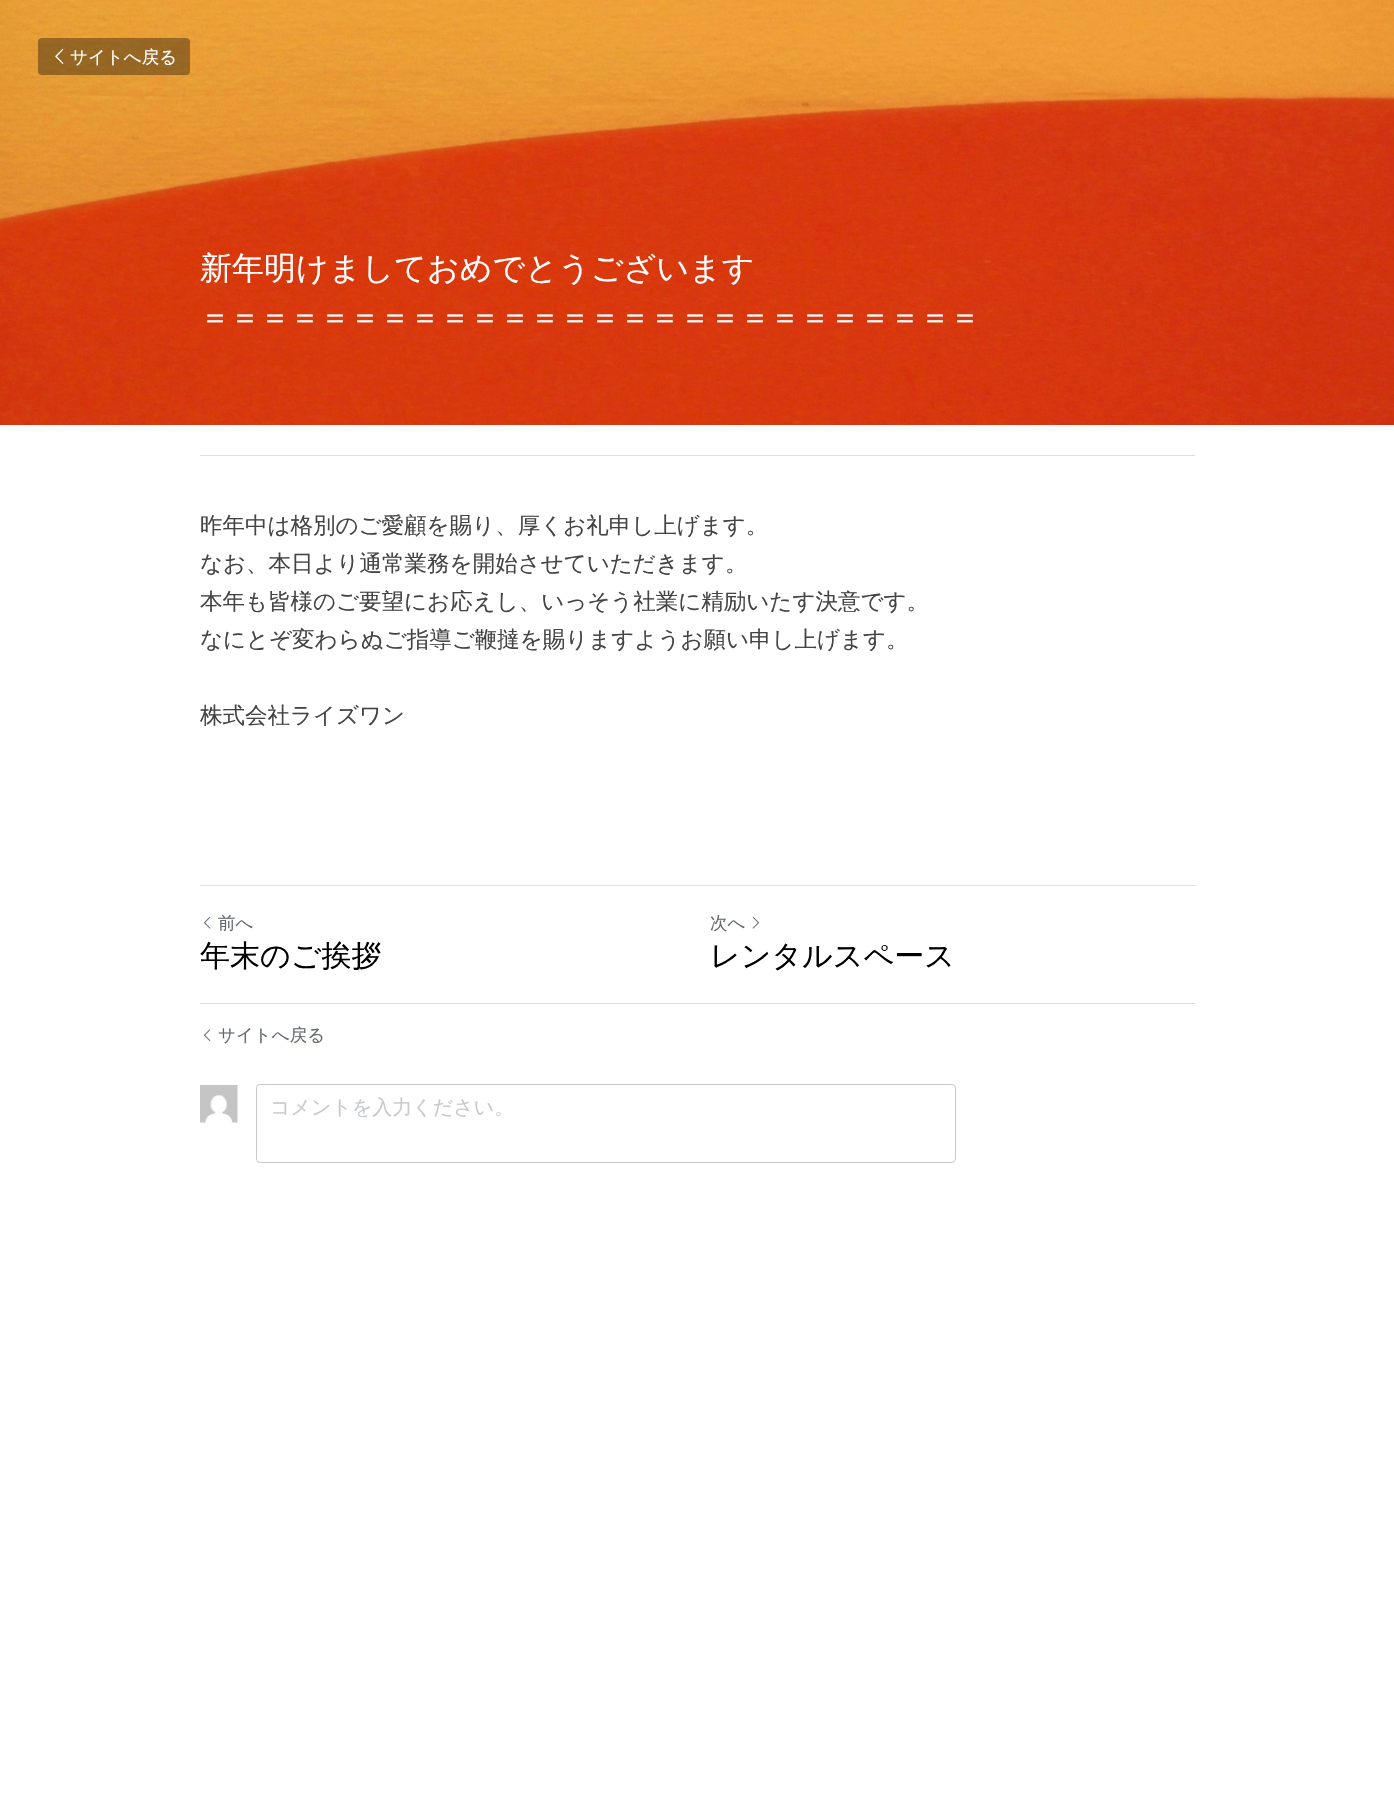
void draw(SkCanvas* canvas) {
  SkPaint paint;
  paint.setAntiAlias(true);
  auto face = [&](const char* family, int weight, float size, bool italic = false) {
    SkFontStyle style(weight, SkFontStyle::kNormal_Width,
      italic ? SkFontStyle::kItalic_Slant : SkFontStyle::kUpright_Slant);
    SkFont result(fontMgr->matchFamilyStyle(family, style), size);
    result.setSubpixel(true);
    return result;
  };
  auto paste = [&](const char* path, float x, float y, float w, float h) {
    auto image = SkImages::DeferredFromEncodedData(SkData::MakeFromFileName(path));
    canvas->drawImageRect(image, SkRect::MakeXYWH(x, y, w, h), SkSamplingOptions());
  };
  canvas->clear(0xffffffff);
  paste("img/1.png", 0, 0, 1394, 425);
  paint.setColor(0x59000000);
  canvas->drawRoundRect(SkRect::MakeXYWH(38, 38, 152, 37), 4, 4, paint);
  paste("img/2.png", 55, 48, 9, 16);
  paint.setColor(0xffdddddd);
  canvas->drawRect(SkRect::MakeXYWH(200, 455, 995, 1), paint);
  canvas->drawRect(SkRect::MakeXYWH(200, 885, 995, 1), paint);
  paste("img/3.png", 204, 916, 7, 13);
  paste("img/4.png", 752, 916, 7, 13);
  canvas->drawRect(SkRect::MakeXYWH(200, 1003, 995, 1), paint);
  paste("img/5.png", 204, 1029, 7, 12);
  paste("img/6.png", 200, 1085, 38, 38);
  paint.setStroke(true);
  paint.setStrokeWidth(1);
  paint.setColor(0xffc6c9cd);
  canvas->drawRoundRect(SkRect::MakeXYWH(256.5f, 1084.5f, 699, 78), 3.5f, 3.5f, paint);
  auto f0 = face("WenQuanYi Zen Hei", 500, 17.5f);
  paint.setStroke(false);
  paint.setColor(0xffffffff);
  canvas->drawString("サイトへ戻る", 70, 63, f0, paint);
  auto f1 = face("WenQuanYi Zen Hei", 500, 32);
  canvas->drawString("新年明けましておめでとうございます", 200, 279, f1, paint);
  auto f2 = face("WenQuanYi Zen Hei", 500, 30);
  canvas->drawString("＝＝＝＝＝＝＝＝＝＝＝＝＝＝＝＝＝＝＝＝＝＝＝＝＝＝", 200, 327, f2, paint);
  auto f3 = face("WenQuanYi Zen Hei", 500, 22.5f);
  paint.setColor(0xff444444);
  {
    const struct { const char* s; float x, y; } items[] = {
      {"昨年中は格別のご愛顧を賜り、厚くお礼申し上げます。", 200, 533},
      {"なお、本日より通常業務を開始させていただきます。", 200, 571},
      {"本年も皆様のご要望にお応えし、いっそう社業に精励いたす決意です。", 200, 609},
      {"なにとぞ変わらぬご指導ご鞭撻を賜りますようお願い申し上げます。", 200, 647},
      {"株式会社ライズワン", 200, 723},
    };
    for (auto [s, x, y] : items) {
      canvas->drawString(s, x, y, f3, paint);
    }
  }
  paint.setColor(0xff636972);
  canvas->drawString("前へ", 218, 929, f0, paint);
  paint.setColor(0xff000000);
  canvas->drawString("年末のご挨拶", 200, 966, f2, paint);
  paint.setColor(0xff636972);
  canvas->drawString("次へ", 710, 929, f0, paint);
  paint.setColor(0xff000000);
  canvas->drawString("レンタルスペース", 710, 966, f2, paint);
  paint.setColor(0xff636972);
  canvas->drawString("サイトへ戻る", 218, 1041, f0, paint);
  auto f4 = face("WenQuanYi Zen Hei", 500, 20);
  paint.setColor(0xffc6c9cd);
  canvas->drawString("コメントを入力ください。", 270, 1114, f4, paint);
}
